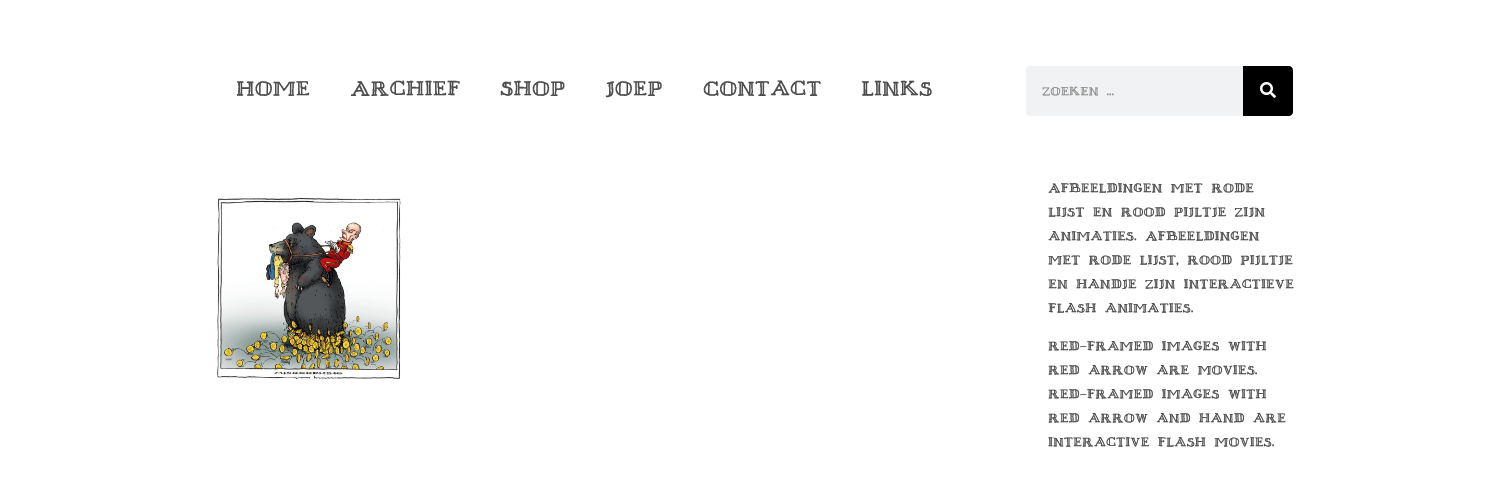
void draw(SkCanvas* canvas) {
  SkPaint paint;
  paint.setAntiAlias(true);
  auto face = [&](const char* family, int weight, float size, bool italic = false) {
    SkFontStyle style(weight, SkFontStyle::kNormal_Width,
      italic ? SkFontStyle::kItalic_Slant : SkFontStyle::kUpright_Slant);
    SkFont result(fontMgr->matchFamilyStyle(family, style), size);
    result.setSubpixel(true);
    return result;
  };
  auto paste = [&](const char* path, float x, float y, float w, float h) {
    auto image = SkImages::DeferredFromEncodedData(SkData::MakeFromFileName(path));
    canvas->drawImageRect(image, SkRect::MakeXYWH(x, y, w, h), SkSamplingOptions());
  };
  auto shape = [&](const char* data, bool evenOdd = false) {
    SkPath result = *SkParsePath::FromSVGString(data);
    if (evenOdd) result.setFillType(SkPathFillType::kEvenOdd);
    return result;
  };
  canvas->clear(0xffffffff);
  paint.setColor(0xfff1f2f3);
  canvas->drawRoundRect(SkRect::MakeXYWH(1026, 66, 267, 50), 4, 4, paint);
  paint.setColor(0xff000000);
  canvas->drawPath(shape("M1243 66H1289C1291 66 1293 68 1293 70V112C1293 114 1291 116 1289 116H1243Z"), paint);
  paste("img/1.png", 1260, 82, 16, 16);
  paste("img/2.png", 217, 198, 184, 181);
  auto f0 = face("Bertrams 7", 400, 26);
  paint.setColor(0xff4d4d4d);
  {
    const struct { const char* s; float x, y; } items[] = {
      {"Home", 236, 95},
      {"Archief", 350, 95},
      {"Shop", 500, 95},
      {"Joep", 605, 95},
      {"Contact", 703, 95},
      {"Links", 861, 95},
    };
    for (auto [s, x, y] : items) {
      canvas->drawString(s, x, y, f0, paint);
    }
  }
  auto f1 = face("Bertrams 7", 400, 15);
  paint.setColor(0xff8f8f8f);
  canvas->drawString("Zoeken ...", 1042, 95, f1, paint);
  auto f2 = face("Bertrams 7", 400, 16);
  paint.setColor(0xff4d4d4d);
  {
    const struct { const char* s; float x, y; } items[] = {
      {"Afbeeldingen met rode", 1048, 192},
      {"lijst en rood pijltje zijn", 1048, 216},
      {"animaties. Afbeeldingen", 1048, 240},
      {"met rode lijst, rood pijltje", 1048, 264},
      {"en handje zijn interactieve", 1048, 288},
      {"flash animaties.", 1048, 312},
      {"Red-framed images with", 1048, 350},
      {"red arrow are movies.", 1048, 374},
      {"Red-framed images with", 1048, 398},
      {"red arrow and hand are", 1048, 422},
      {"interactive flash movies.", 1048, 446},
    };
    for (auto [s, x, y] : items) {
      canvas->drawString(s, x, y, f2, paint);
    }
  }
}
